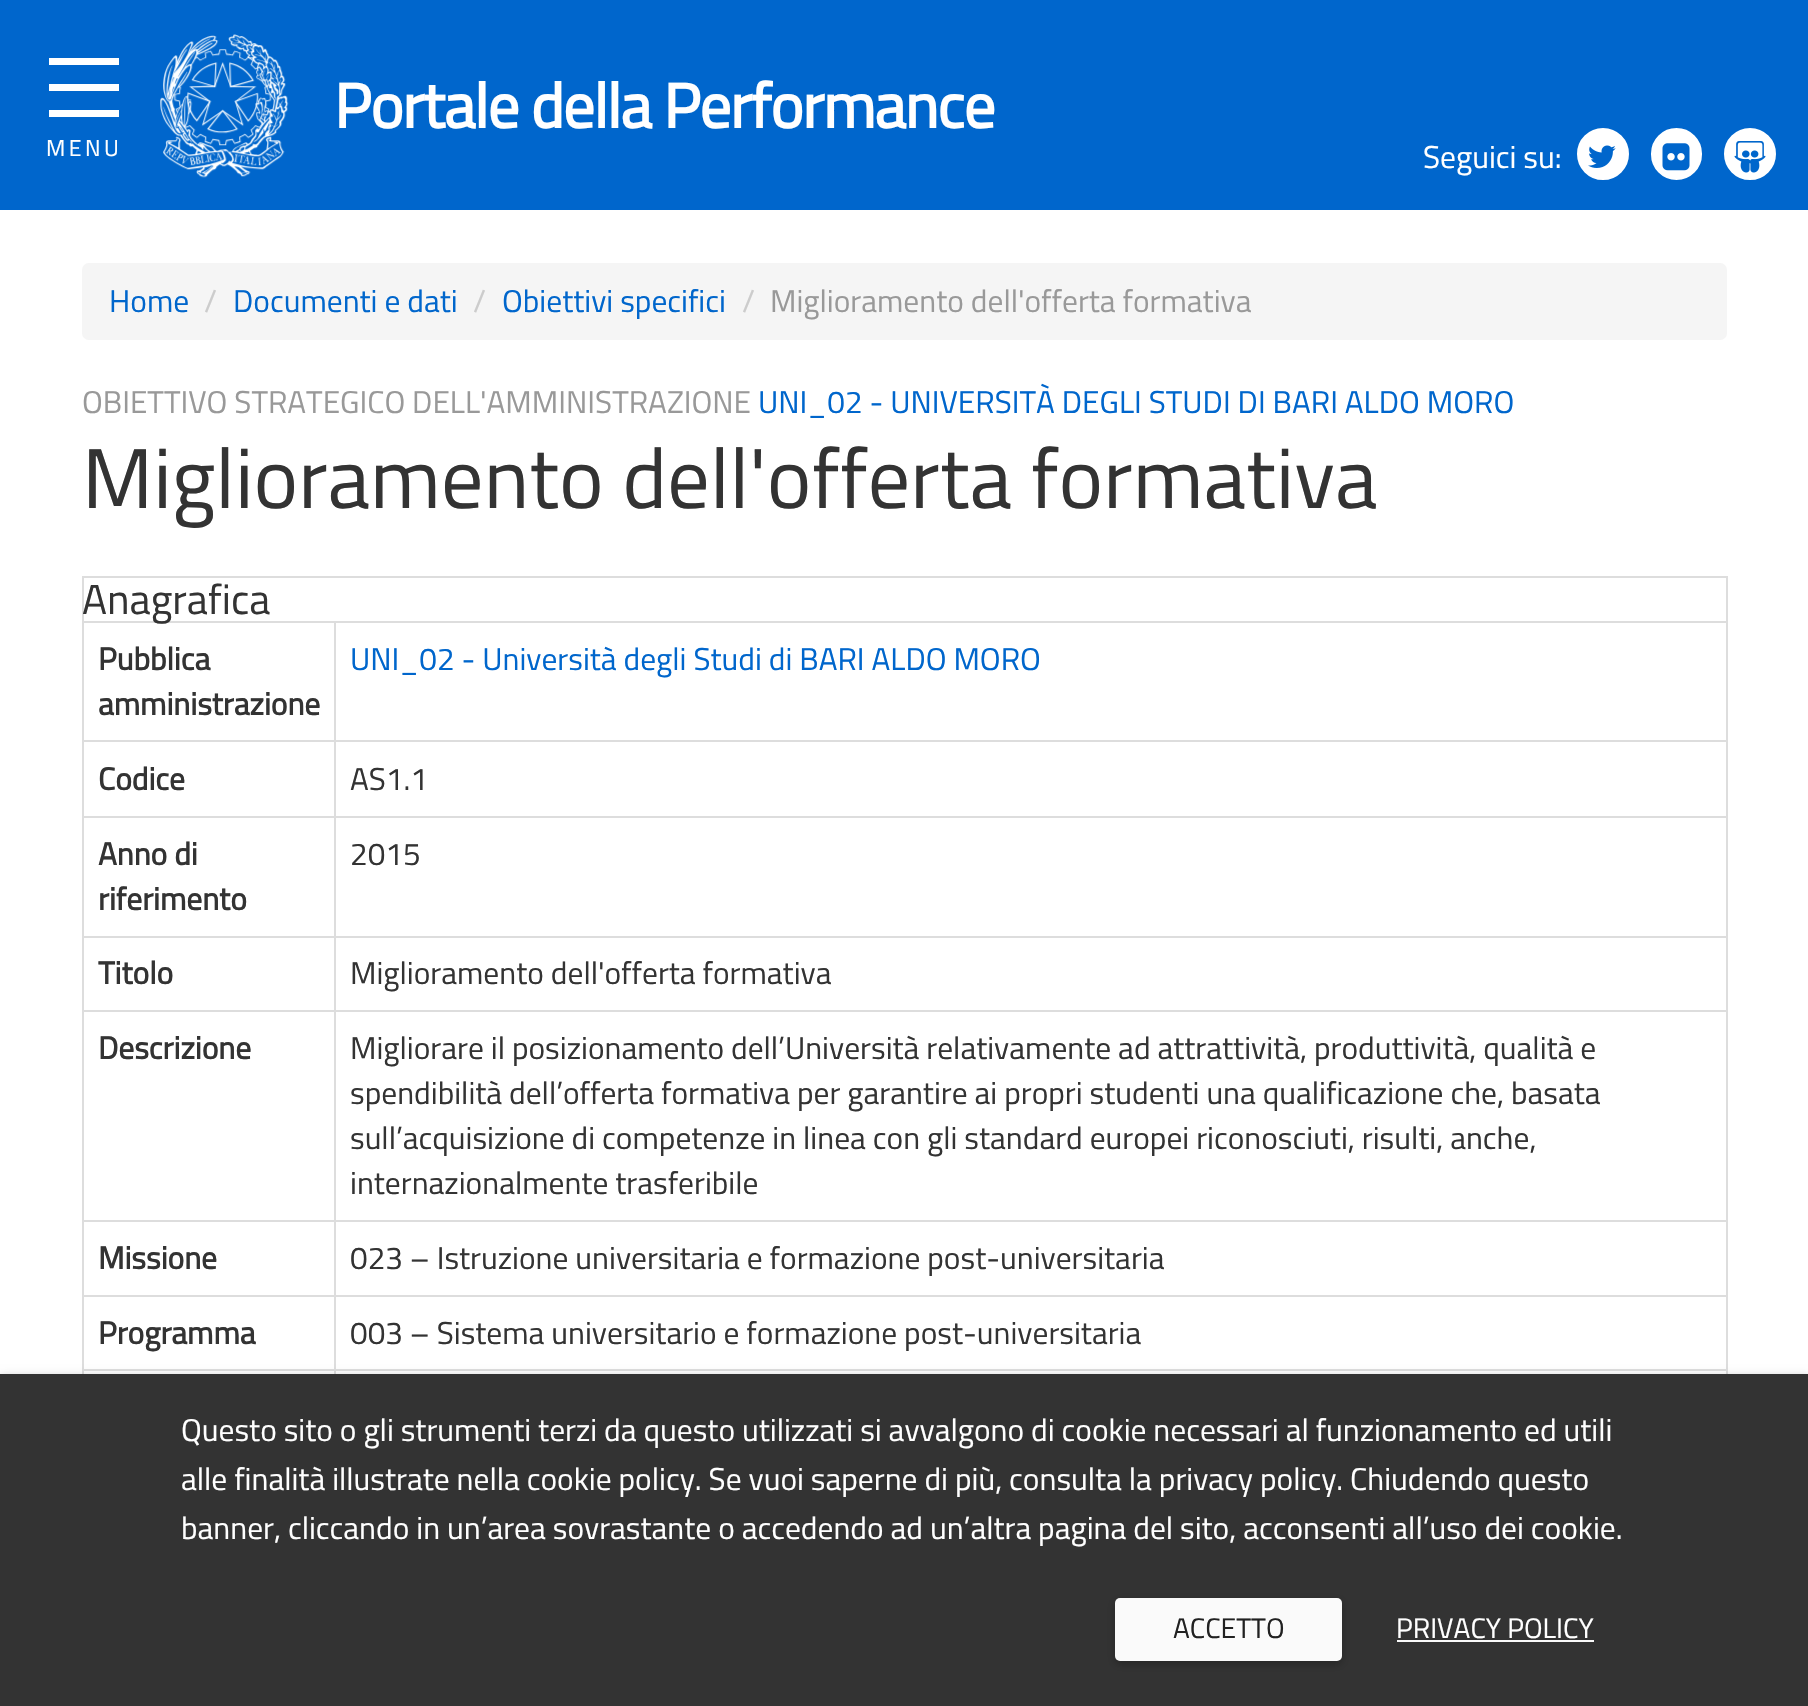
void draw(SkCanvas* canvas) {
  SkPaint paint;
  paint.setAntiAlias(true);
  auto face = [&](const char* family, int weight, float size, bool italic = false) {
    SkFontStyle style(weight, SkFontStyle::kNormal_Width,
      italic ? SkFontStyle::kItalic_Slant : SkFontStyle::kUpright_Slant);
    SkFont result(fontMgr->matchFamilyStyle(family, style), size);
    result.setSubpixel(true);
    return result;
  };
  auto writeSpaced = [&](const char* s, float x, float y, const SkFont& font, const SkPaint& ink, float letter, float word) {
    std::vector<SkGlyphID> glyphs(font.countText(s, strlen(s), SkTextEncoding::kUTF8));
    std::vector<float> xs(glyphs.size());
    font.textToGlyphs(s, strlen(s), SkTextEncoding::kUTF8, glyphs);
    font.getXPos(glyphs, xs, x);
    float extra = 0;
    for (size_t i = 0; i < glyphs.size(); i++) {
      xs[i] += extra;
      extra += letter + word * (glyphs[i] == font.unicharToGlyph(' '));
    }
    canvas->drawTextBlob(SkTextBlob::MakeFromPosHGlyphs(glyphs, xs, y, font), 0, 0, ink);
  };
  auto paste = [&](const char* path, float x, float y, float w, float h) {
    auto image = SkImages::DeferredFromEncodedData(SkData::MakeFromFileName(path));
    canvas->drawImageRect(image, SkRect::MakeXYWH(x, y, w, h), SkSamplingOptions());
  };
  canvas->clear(0xffffffff);
  {
    const struct { float x, y, w, h; SkColor color; } items[] = {
      {0, 0, 1808, 210, 0xff0066cc},
      {49, 58, 70, 7, 0xffffffff},
      {49, 84, 70, 7, 0xffffffff},
      {49, 110, 70, 7, 0xffffffff},
    };
    for (auto [x, y, w, h, color] : items) {
      paint.setColor(color);
      canvas->drawRect(SkRect::MakeXYWH(x, y, w, h), paint);
    }
  }
  paste("img/1.png", 160, 34, 129, 144);
  canvas->drawCircle(1603, 154, 28, paint);
  paint.setStroke(true);
  paint.setStrokeWidth(4);
  paint.setColor(0xff0066cc);
  canvas->drawCircle(1603, 154, 28, paint);
  paste("img/2.png", 1588, 145, 28, 23);
  paint.setStroke(false);
  paint.setColor(0xffffffff);
  canvas->drawRoundRect(SkRect::MakeXYWH(1649, 126, 55, 56), 27.5f, 27.5f, paint);
  paint.setStroke(true);
  paint.setColor(0xff0066cc);
  canvas->drawRoundRect(SkRect::MakeXYWH(1649, 126, 55, 56), 27.5f, 27.5f, paint);
  paste("img/3.png", 1662, 143, 28, 28);
  paint.setStroke(false);
  paint.setColor(0xffffffff);
  canvas->drawCircle(1750, 154, 28, paint);
  paint.setStroke(true);
  paint.setColor(0xff0066cc);
  canvas->drawCircle(1750, 154, 28, paint);
  paste("img/4.png", 1734, 141, 32, 32);
  paint.setStroke(false);
  paint.setColor(0xfff5f5f5);
  canvas->drawRoundRect(SkRect::MakeXYWH(82, 263, 1645, 77), 7, 7, paint);
  {
    const struct { float x, y, w, h; SkColor color; } items[] = {
      {82, 576, 1645, 2, 0xffdddddd},
      {1726, 576, 2, 798, 0xffdddddd},
      {82, 576, 2, 798, 0xffdddddd},
      {334, 621, 1393, 2, 0xffdddddd},
      {334, 740, 1393, 2, 0xffdddddd},
      {334, 816, 1393, 2, 0xffdddddd},
      {334, 936, 1393, 2, 0xffdddddd},
      {334, 1010, 1393, 2, 0xffdddddd},
      {334, 1220, 1393, 2, 0xffdddddd},
      {334, 1295, 1393, 2, 0xffdddddd},
      {334, 1369, 1393, 2, 0xffdddddd},
      {334, 1369, 2, 5, 0xffdddddd},
      {82, 1369, 254, 2, 0xffdddddd},
      {334, 1295, 2, 75, 0xffdddddd},
      {82, 1295, 254, 2, 0xffdddddd},
      {334, 1220, 2, 77, 0xffdddddd},
      {82, 1220, 254, 2, 0xffdddddd},
      {334, 1010, 2, 212, 0xffdddddd},
      {82, 1010, 254, 2, 0xffdddddd},
      {334, 936, 2, 76, 0xffdddddd},
      {82, 936, 254, 2, 0xffdddddd},
      {334, 816, 2, 122, 0xffdddddd},
      {82, 816, 254, 2, 0xffdddddd},
      {334, 740, 2, 77, 0xffdddddd},
      {82, 740, 254, 2, 0xffdddddd},
      {334, 621, 2, 121, 0xffdddddd},
      {82, 621, 254, 2, 0xffdddddd},
    };
    for (auto [x, y, w, h, color] : items) {
      paint.setColor(color);
      canvas->drawRect(SkRect::MakeXYWH(x, y, w, h), paint);
    }
  }
  paint.setColor(0x42000000);
  paint.setMaskFilter(SkMaskFilter::MakeBlur(kNormal_SkBlurStyle, 4.5f));
  canvas->drawRect(SkRect::MakeXYWH(0, 1377, 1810, 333), paint);
  paint.setMaskFilter(nullptr);
  paint.setColor(0xff333333);
  canvas->drawRect(SkRect::MakeXYWH(0, 1374, 1808, 332), paint);
  paint.setColor(0x42000000);
  paint.setMaskFilter(SkMaskFilter::MakeBlur(kNormal_SkBlurStyle, 4.5f));
  canvas->drawRoundRect(SkRect::MakeXYWH(1115, 1601, 227, 63), 5, 5, paint);
  paint.setMaskFilter(nullptr);
  paint.setColor(0xfffafafa);
  canvas->drawRoundRect(SkRect::MakeXYWH(1115, 1598, 227, 63), 5, 5, paint);
  canvas->drawRect(SkRect::MakeXYWH(1397, 1640, 197, 2), paint);
  auto f0 = face("Titillium Web", 400, 23);
  paint.setColor(0xffffffff);
  writeSpaced("MENU", 46, 156, f0, paint, 3.5f, 0);
  auto f1 = face("Titillium Web", 700, 63);
  writeSpaced("Portale della Performance", 334, 128, f1, paint, -1.2f, 0);
  auto f2 = face("Titillium Web", 400, 31.5f);
  canvas->drawString("Seguici su:", 1423, 168, f2, paint);
  paint.setColor(0xff0066cc);
  canvas->drawString("Home", 109, 312, f2, paint);
  paint.setColor(0xffcccccc);
  canvas->drawString("/", 204, 312, f2, paint);
  paint.setColor(0xff0066cc);
  canvas->drawString("Documenti e dati", 233, 312, f2, paint);
  paint.setColor(0xffcccccc);
  canvas->drawString("/", 473, 312, f2, paint);
  paint.setColor(0xff0066cc);
  canvas->drawString("Obiettivi specifici", 502, 312, f2, paint);
  paint.setColor(0xffcccccc);
  canvas->drawString("/", 742, 312, f2, paint);
  paint.setColor(0xff999999);
  canvas->drawString("Miglioramento dell'offerta formativa", 770, 312, f2, paint);
  canvas->drawString("OBIETTIVO STRATEGICO DELL'AMMINISTRAZIONE", 82, 413, f2, paint);
  paint.setColor(0xff0066cc);
  canvas->drawString("UNI_02 - UNIVERSITÀ DEGLI STUDI DI BARI ALDO MORO", 758, 413, f2, paint);
  auto f3 = face("Titillium Web", 400, 84.75f);
  paint.setColor(0xff333333);
  canvas->drawString("Miglioramento dell'offerta formativa", 82, 508, f3, paint);
  auto f4 = face("Titillium Web", 400, 42);
  canvas->drawString("Anagrafica", 82, 614, f4, paint);
  auto f5 = face("Titillium Web", 700, 31.5f);
  canvas->drawString("Pubblica", 98, 670, f5, paint);
  canvas->drawString("amministrazione", 98, 715, f5, paint);
  paint.setColor(0xff0066cc);
  canvas->drawString("UNI_02 - Università degli Studi di BARI ALDO MORO", 350, 670, f2, paint);
  paint.setColor(0xff333333);
  canvas->drawString("Codice", 98, 790, f5, paint);
  canvas->drawString("AS1.1", 350, 790, f2, paint);
  canvas->drawString("Anno di", 98, 865, f5, paint);
  canvas->drawString("riferimento", 98, 910, f5, paint);
  canvas->drawString("2015", 350, 865, f2, paint);
  canvas->drawString("Titolo", 98, 984, f5, paint);
  canvas->drawString("Miglioramento dell'offerta formativa", 350, 984, f2, paint);
  canvas->drawString("Descrizione", 98, 1059, f5, paint);
  {
    const struct { const char* s; float x, y; } items[] = {
      {"Migliorare il posizionamento dell’Università relativamente ad attrattività, produttività, qualità e", 350, 1059},
      {"spendibilità dell’offerta formativa per garantire ai propri studenti una qualificazione che, basata", 350, 1104},
      {"sull’acquisizione di competenze in linea con gli standard europei riconosciuti, risulti, anche,", 350, 1149},
      {"internazionalmente trasferibile", 350, 1194},
    };
    for (auto [s, x, y] : items) {
      canvas->drawString(s, x, y, f2, paint);
    }
  }
  canvas->drawString("Missione", 98, 1269, f5, paint);
  canvas->drawString("023 – Istruzione universitaria e formazione post-universitaria", 350, 1269, f2, paint);
  canvas->drawString("Programma", 98, 1344, f5, paint);
  canvas->drawString("003 – Sistema universitario e formazione post-universitaria", 350, 1344, f2, paint);
  paint.setColor(0xffffffff);
  {
    const struct { const char* s; float x, y; } items[] = {
      {"Questo sito o gli strumenti terzi da questo utilizzati si avvalgono di cookie necessari al funzionamento ed utili", 181, 1441},
      {"alle finalità illustrate nella cookie policy. Se vuoi saperne di più, consulta la privacy policy. Chiudendo questo", 181, 1490},
      {"banner, cliccando in un’area sovrastante o accedendo ad un’altra pagina del sito, acconsenti all’uso dei cookie.", 181, 1539},
    };
    for (auto [s, x, y] : items) {
      canvas->drawString(s, x, y, f2, paint);
    }
  }
  auto f6 = face("Titillium Web", 400, 28.25f);
  paint.setColor(0xff212121);
  canvas->drawString("ACCETTO", 1173, 1638, f6, paint);
  paint.setColor(0xffffffff);
  canvas->drawString("PRIVACY POLICY", 1396, 1638, f6, paint);
}
